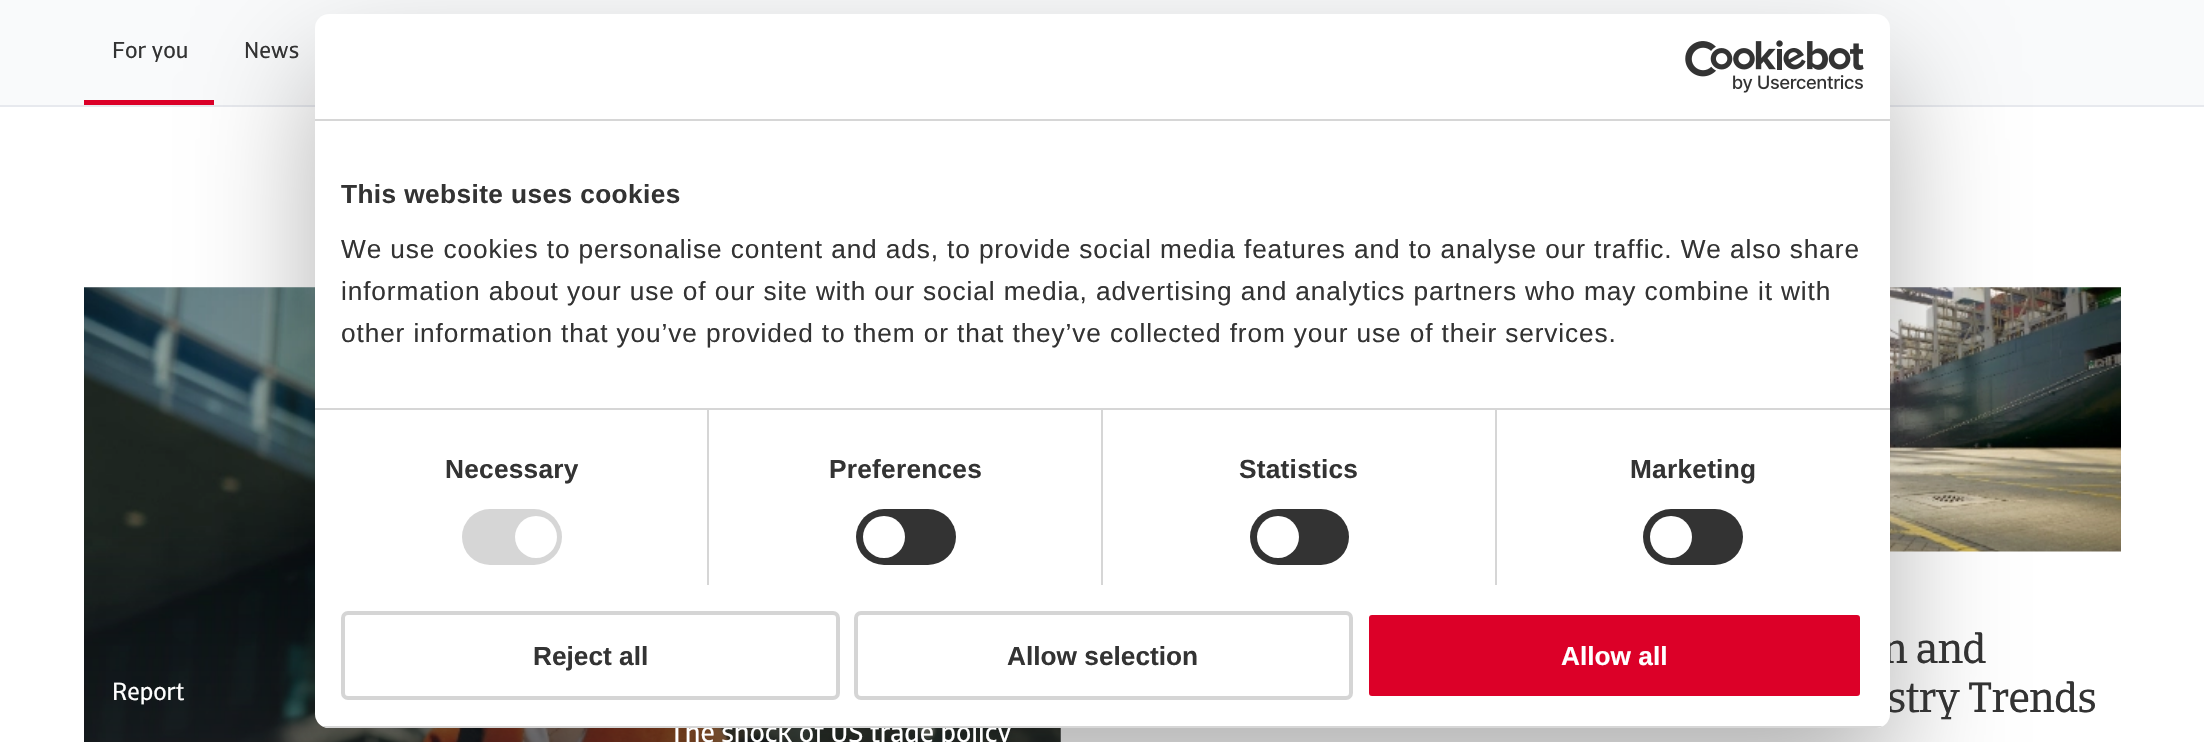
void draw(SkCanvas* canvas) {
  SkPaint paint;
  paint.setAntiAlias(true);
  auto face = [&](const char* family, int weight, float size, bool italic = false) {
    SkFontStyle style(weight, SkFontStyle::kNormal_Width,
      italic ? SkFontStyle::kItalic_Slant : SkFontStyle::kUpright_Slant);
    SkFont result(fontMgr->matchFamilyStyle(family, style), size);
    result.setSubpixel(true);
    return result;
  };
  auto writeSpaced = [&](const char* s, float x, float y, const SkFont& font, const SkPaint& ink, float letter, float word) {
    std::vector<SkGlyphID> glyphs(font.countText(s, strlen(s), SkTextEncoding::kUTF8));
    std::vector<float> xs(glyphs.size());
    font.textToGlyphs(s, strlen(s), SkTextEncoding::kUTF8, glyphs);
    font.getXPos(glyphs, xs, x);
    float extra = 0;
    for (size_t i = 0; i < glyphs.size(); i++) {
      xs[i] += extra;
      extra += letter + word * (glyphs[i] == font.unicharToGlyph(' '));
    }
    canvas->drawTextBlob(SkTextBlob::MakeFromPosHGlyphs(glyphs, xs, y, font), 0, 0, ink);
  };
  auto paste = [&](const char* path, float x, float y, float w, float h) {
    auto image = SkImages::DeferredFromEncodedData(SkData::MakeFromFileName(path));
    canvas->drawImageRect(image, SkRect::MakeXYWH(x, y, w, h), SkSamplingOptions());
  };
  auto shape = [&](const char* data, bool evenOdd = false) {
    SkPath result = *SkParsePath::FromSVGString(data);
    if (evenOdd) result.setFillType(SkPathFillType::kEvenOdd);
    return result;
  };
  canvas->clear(0xffffffff);
  {
    const struct { float x, y, w, h; SkColor color; } items[] = {
      {0, 0, 2204, 105, 0xfff9fafb},
      {0, 105, 2204, 2, 0xffe7e9ee},
      {84, 100, 130, 5, 0xffdc0028},
    };
    for (auto [x, y, w, h, color] : items) {
      paint.setColor(color);
      canvas->drawRect(SkRect::MakeXYWH(x, y, w, h), paint);
    }
  }
  paste("img/1.png", 84, 287, 977, 455);
  {
    const SkColor colors[] = {0x00212428, 0xe6212428};
    const float stops[] = {0, 1};
    const SkPoint ends[] = {{572, 527}, {572, 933}};
    paint.setShader(SkGradientShader::MakeLinear(ends, colors, stops, 2, SkTileMode::kClamp));
    paint.setAlpha(255);
  }
  canvas->drawRect(SkRect::MakeXYWH(84, 537, 977, 205), paint);
  paste("img/2.png", 1890, 287, 231, 265);
  paint.setShader(nullptr);
  paint.setColor(0x4d000000);
  paint.setMaskFilter(SkMaskFilter::MakeBlur(kNormal_SkBlurStyle, 59.5f));
  canvas->drawRoundRect(SkRect::MakeXYWH(315, 70, 1575, 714), 14, 14, paint);
  paint.setMaskFilter(nullptr);
  auto f0 = face("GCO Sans", 400, 23);
  paint.setColor(0xff333333);
  canvas->drawString("For you", 112, 58, f0, paint);
  canvas->drawString("News", 244, 58, f0, paint);
  auto f1 = face("GCO Sans", 400, 24.5f);
  paint.setColor(0xffffffff);
  canvas->drawString("Report", 112, 700, f1, paint);
  auto f2 = face("GCO Sans", 400, 28);
  canvas->drawString("The shock of US trade policy", 669, 742, f2, paint);
  auto f3 = face("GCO", 400, 42);
  paint.setColor(0xff333333);
  writeSpaced("n and", 1882, 663, f3, paint, -0.75f, 0);
  writeSpaced("stry Trends", 1887, 712, f3, paint, -0.75f, 0);
  paint.setColor(0xffffffff);
  canvas->drawRoundRect(SkRect::MakeXYWH(315, 14, 1575, 714), 14, 14, paint);
  paint.setColor(0xffd6d6d6);
  canvas->drawRect(SkRect::MakeXYWH(315, 119, 1575, 2), paint);
  paste("img/3.png", 1685, 40, 179, 53);
  canvas->drawRect(SkRect::MakeXYWH(315, 408, 1575, 2), paint);
  auto f4 = face("Liberation Sans", 700, 26.25f);
  paint.setColor(0xff333333);
  writeSpaced("This website uses cookies", 341, 203, f4, paint, 0.4f, 0);
  auto f5 = face("Liberation Sans", 400, 26.25f);
  {
    const struct { const char* s; float x, y; } items[] = {
      {"We use cookies to personalise content and ads, to provide social media features and to analyse our traffic. We also share", 341, 258},
      {"information about your use of our site with our social media, advertising and analytics partners who may combine it with", 341, 300},
      {"other information that you’ve provided to them or that they’ve collected from your use of their services.", 341, 342},
    };
    for (auto [s, x, y] : items) {
      writeSpaced(s, x, y, f5, paint, 0.88f, 0);
    }
  }
  paint.setColor(0xffd6d6d6);
  canvas->drawRect(SkRect::MakeXYWH(707, 410, 2, 175), paint);
  paint.setColor(0xff333333);
  writeSpaced("Necessary", 445, 478, f4, paint, 0.25f, 0);
  paint.setColor(0xffd6d6d6);
  canvas->drawRoundRect(SkRect::MakeXYWH(462, 509, 100, 56), 28, 28, paint);
  paint.setColor(0xffffffff);
  canvas->drawCircle(536, 537, 21, paint);
  paint.setColor(0xffd6d6d6);
  canvas->drawRect(SkRect::MakeXYWH(1101, 410, 2, 175), paint);
  paint.setColor(0xff333333);
  writeSpaced("Preferences", 829, 478, f4, paint, 0.25f, 0);
  canvas->drawRoundRect(SkRect::MakeXYWH(856, 509, 100, 56), 28, 28, paint);
  paint.setColor(0xffffffff);
  canvas->drawCircle(884, 537, 21, paint);
  paint.setColor(0xffd6d6d6);
  canvas->drawRect(SkRect::MakeXYWH(1495, 410, 2, 175), paint);
  paint.setColor(0xff333333);
  writeSpaced("Statistics", 1239, 478, f4, paint, 0.25f, 0);
  canvas->drawRoundRect(SkRect::MakeXYWH(1250, 509, 99, 56), 28, 28, paint);
  paint.setColor(0xffffffff);
  canvas->drawCircle(1278, 537, 21, paint);
  paint.setColor(0xff333333);
  writeSpaced("Marketing", 1630, 478, f4, paint, 0.25f, 0);
  canvas->drawRoundRect(SkRect::MakeXYWH(1643, 509, 100, 56), 28, 28, paint);
  paint.setColor(0xffffffff);
  canvas->drawCircle(1671, 537, 21, paint);
  canvas->save();
  canvas->clipPath(shape("M329 14H1876C1883.5 14 1890 20.5 1890 28V714C1890 721.5 1883.5 728 1876 728H329C321.5 728 315 721.5 315 714V28C315 20.5 321.5 14 329 14Z"), true);
  paint.setColor(0xffd6d6d6);
  canvas->drawRect(SkRect::MakeXYWH(315, 726, 1575, 2), paint);
  canvas->restore();
  paint.setStroke(true);
  paint.setStrokeWidth(4);
  paint.setColor(0xffd5d5d5);
  canvas->drawRoundRect(SkRect::MakeXYWH(343, 613, 495, 85), 5, 5, paint);
  paint.setStroke(false);
  paint.setColor(0xff333333);
  canvas->drawString("Reject all", 533, 665, f4, paint);
  paint.setStroke(true);
  paint.setColor(0xffd5d5d5);
  canvas->drawRoundRect(SkRect::MakeXYWH(856, 613, 495, 85), 5, 5, paint);
  paint.setStroke(false);
  paint.setColor(0xff333333);
  canvas->drawString("Allow selection", 1007, 665, f4, paint);
  paint.setColor(0xffdc0028);
  canvas->drawRoundRect(SkRect::MakeXYWH(1367, 613, 495, 85), 5, 5, paint);
  paint.setStroke(true);
  paint.setColor(0xffffffff);
  canvas->drawRoundRect(SkRect::MakeXYWH(1367, 613, 495, 85), 5, 5, paint);
  paint.setStroke(false);
  canvas->drawString("Allow all", 1561, 665, f4, paint);
}
